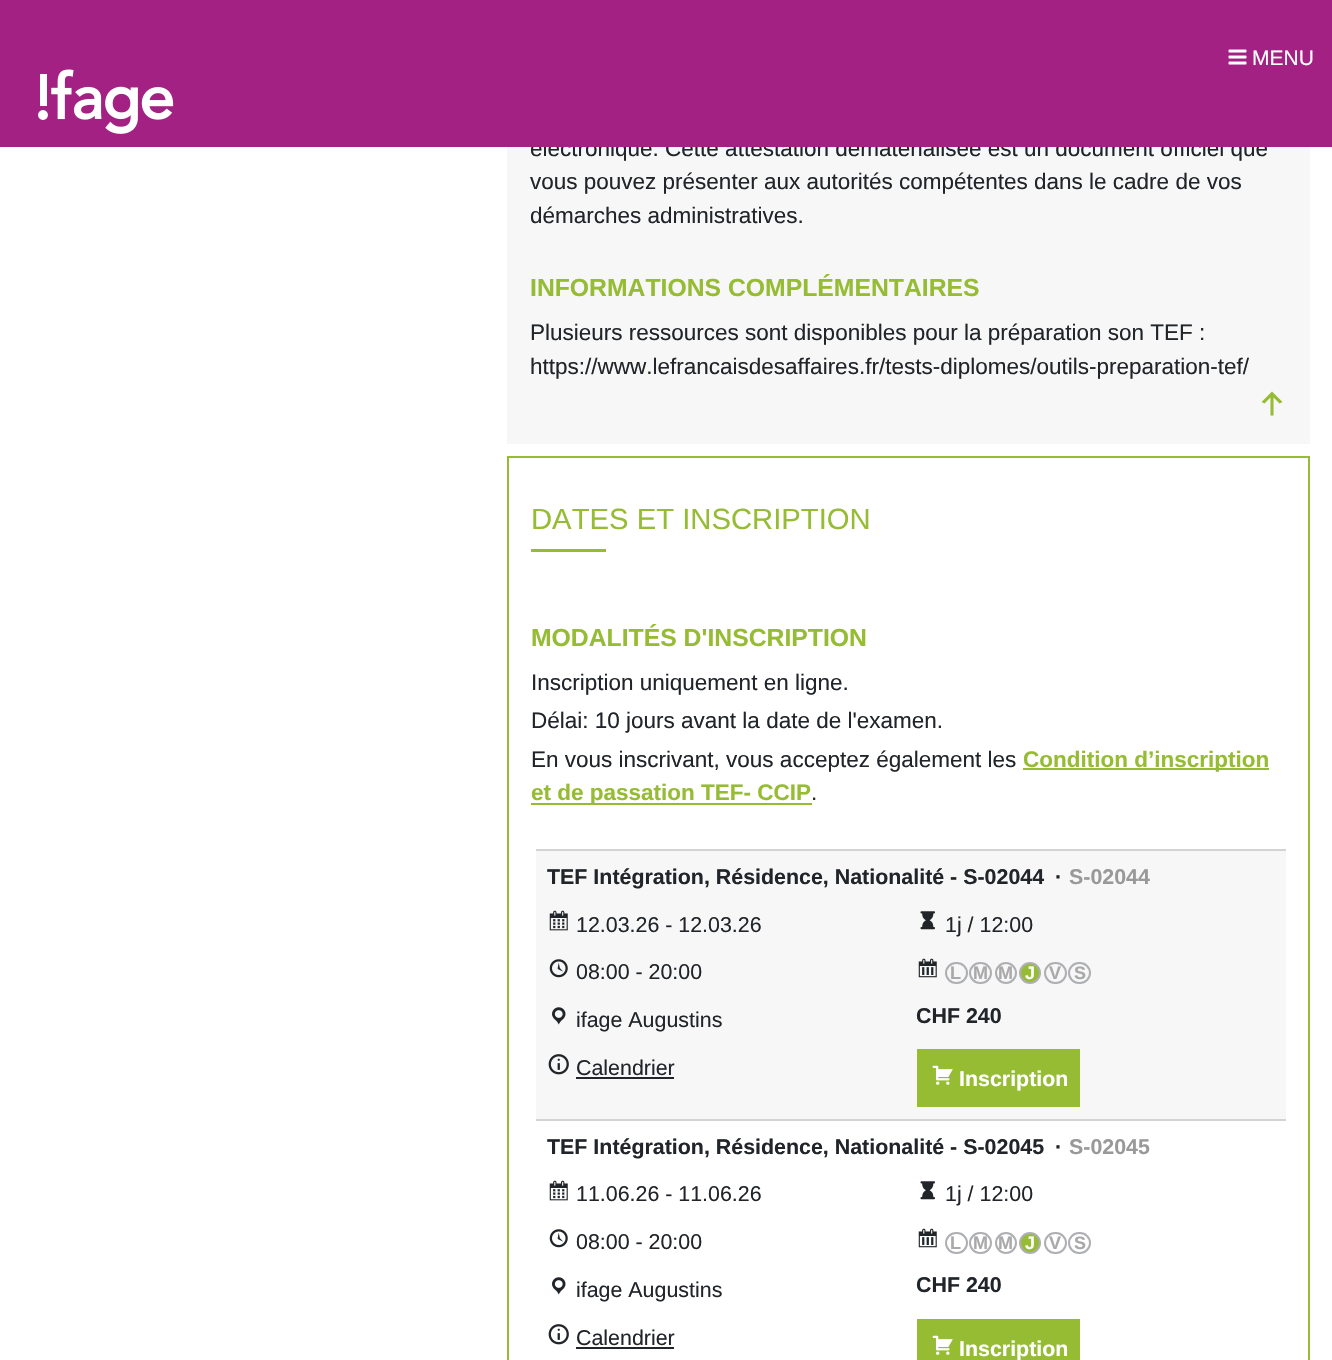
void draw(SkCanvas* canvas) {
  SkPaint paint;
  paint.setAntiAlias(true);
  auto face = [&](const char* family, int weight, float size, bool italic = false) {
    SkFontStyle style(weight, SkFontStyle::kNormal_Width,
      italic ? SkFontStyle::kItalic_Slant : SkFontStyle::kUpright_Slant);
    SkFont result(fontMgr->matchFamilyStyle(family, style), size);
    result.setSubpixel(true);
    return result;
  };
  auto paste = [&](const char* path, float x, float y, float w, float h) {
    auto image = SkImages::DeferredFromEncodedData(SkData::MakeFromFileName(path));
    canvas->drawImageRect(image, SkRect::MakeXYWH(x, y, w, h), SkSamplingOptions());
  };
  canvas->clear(0xffffffff);
  paint.setColor(0xfff7f7f7);
  canvas->drawRect(SkRect::MakeXYWH(507, 147, 803, 297), paint);
  paste("img/3.png", 1261, 391, 22, 25);
  paint.setStroke(true);
  paint.setStrokeWidth(2);
  paint.setColor(0xff96bc33);
  canvas->drawRect(SkRect::MakeXYWH(508, 457, 801, 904), paint);
  paint.setStroke(false);
  {
    const struct { float x, y, w, h; SkColor color; } items[] = {
      {531, 549, 75, 3, 0xff96bc33},
      {1023, 768, 246, 2, 0xff96bc33},
      {531, 803, 281, 2, 0xff96bc33},
      {536, 849, 750, 2, 0xffd3d3d3},
      {536, 851, 750, 268, 0xfff7f7f7},
      {536, 1119, 750, 2, 0xffd3d3d3},
    };
    for (auto [x, y, w, h, color] : items) {
      paint.setColor(color);
      canvas->drawRect(SkRect::MakeXYWH(x, y, w, h), paint);
    }
  }
  paste("img/4.png", 549, 910, 19, 21);
  paste("img/5.png", 920, 911, 15, 19);
  paste("img/6.png", 549, 959, 19, 19);
  paste("img/7.png", 918, 958, 19, 20);
  paint.setStroke(true);
  paint.setColor(0xffadafb2);
  canvas->drawRoundRect(SkRect::MakeXYWH(946, 963, 21, 20), 10, 10, paint);
  canvas->drawRoundRect(SkRect::MakeXYWH(970, 963, 21, 20), 10, 10, paint);
  canvas->drawCircle(1006, 973, 10, paint);
  paint.setStroke(false);
  paint.setColor(0xff96bc33);
  canvas->drawCircle(1030, 973, 10, paint);
  paint.setStroke(true);
  paint.setColor(0xffadafb2);
  canvas->drawCircle(1030, 973, 10, paint);
  canvas->drawRoundRect(SkRect::MakeXYWH(1045, 963, 21, 20), 10, 10, paint);
  canvas->drawRoundRect(SkRect::MakeXYWH(1069, 963, 21, 20), 10, 10, paint);
  paste("img/8.png", 552, 1007, 14, 18);
  paste("img/9.png", 548, 1054, 21, 21);
  paint.setStroke(false);
  paint.setColor(0xff212529);
  canvas->drawRect(SkRect::MakeXYWH(576, 1077, 98, 2), paint);
  paint.setColor(0xff96bc33);
  canvas->drawRect(SkRect::MakeXYWH(917, 1049, 163, 58), paint);
  paste("img/10.png", 932, 1065, 21, 20);
  paste("img/11.png", 549, 1180, 19, 21);
  paste("img/12.png", 920, 1181, 15, 19);
  paste("img/13.png", 549, 1229, 19, 19);
  paste("img/14.png", 918, 1228, 19, 20);
  paint.setStroke(true);
  paint.setColor(0xffadafb2);
  canvas->drawRoundRect(SkRect::MakeXYWH(946, 1233, 21, 20), 10, 10, paint);
  canvas->drawRoundRect(SkRect::MakeXYWH(970, 1233, 21, 20), 10, 10, paint);
  canvas->drawCircle(1006, 1243, 10, paint);
  paint.setStroke(false);
  paint.setColor(0xff96bc33);
  canvas->drawCircle(1030, 1243, 10, paint);
  paint.setStroke(true);
  paint.setColor(0xffadafb2);
  canvas->drawCircle(1030, 1243, 10, paint);
  canvas->drawRoundRect(SkRect::MakeXYWH(1045, 1233, 21, 20), 10, 10, paint);
  canvas->drawRoundRect(SkRect::MakeXYWH(1069, 1233, 21, 20), 10, 10, paint);
  paste("img/15.png", 552, 1277, 14, 18);
  paste("img/16.png", 548, 1324, 21, 21);
  paint.setStroke(false);
  paint.setColor(0xff212529);
  canvas->drawRect(SkRect::MakeXYWH(576, 1347, 98, 2), paint);
  paint.setColor(0xff96bc33);
  canvas->drawRect(SkRect::MakeXYWH(917, 1319, 163, 41), paint);
  paste("img/10.png", 932, 1335, 21, 20);
  auto f0 = face("Liberation Sans", 400, 22.5f);
  paint.setColor(0xff212529);
  canvas->drawString("électronique. Cette attestation dématérialisée est un document officiel que", 530, 156, f0, paint);
  paint.setColor(0xffa22183);
  canvas->drawRect(SkRect::MakeXYWH(0, 0, 1332, 147), paint);
  paste("img/2.png", 38, 69, 136, 65);
  auto f1 = face("Liberation Sans", 400, 21);
  paint.setColor(0xffffffff);
  canvas->drawString("MENU", 1252, 65, f1, paint);
  paste("img/1.png", 1228, 49, 19, 16);
  paint.setColor(0xff212529);
  canvas->drawString("vous pouvez présenter aux autorités compétentes dans le cadre de vos", 530, 189, f0, paint);
  canvas->drawString("démarches administratives.", 530, 223, f0, paint);
  auto f2 = face("Liberation Sans", 700, 24.75f);
  paint.setColor(0xff96bc33);
  canvas->drawString("INFORMATIONS COMPLÉMENTAIRES", 530, 296, f2, paint);
  paint.setColor(0xff212529);
  canvas->drawString("Plusieurs ressources sont disponibles pour la préparation son TEF :", 530, 340, f0, paint);
  canvas->drawString("https://www.lefrancaisdesaffaires.fr/tests-diplomes/outils-preparation-tef/", 530, 374, f0, paint);
  auto f3 = face("Liberation Sans", 400, 29.25f);
  paint.setColor(0xff96bc33);
  canvas->drawString("DATES ET INSCRIPTION", 531, 529, f3, paint);
  canvas->drawString("MODALITÉS D'INSCRIPTION", 531, 646, f2, paint);
  paint.setColor(0xff212529);
  {
    const struct { const char* s; float x, y; } items[] = {
      {"Inscription uniquement en ligne.", 531, 690},
      {"Délai: 10 jours avant la date de l'examen.", 531, 728},
      {"En vous inscrivant, vous acceptez également les", 531, 767},
    };
    for (auto [s, x, y] : items) {
      canvas->drawString(s, x, y, f0, paint);
    }
  }
  auto f4 = face("Liberation Sans", 700, 22.5f);
  paint.setColor(0xff96bc33);
  canvas->drawString("Condition d’inscription", 1023, 767, f4, paint);
  canvas->drawString("et de passation TEF- CCIP", 531, 800, f4, paint);
  paint.setColor(0xff212529);
  canvas->drawString(".", 811, 800, f0, paint);
  auto f5 = face("Liberation Sans", 700, 21.4f);
  canvas->drawString("TEF Intégration, Résidence, Nationalité - S-02044", 547, 884, f5, paint);
  canvas->drawString("·", 1055, 884, f5, paint);
  paint.setColor(0xff999999);
  canvas->drawString("S-02044", 1069, 884, f5, paint);
  auto f6 = face("Liberation Sans", 400, 21.4f);
  paint.setColor(0xff212529);
  {
    const struct { const char* s; float x, y; } items[] = {
      {"12.03.26 - 12.03.26", 576, 932},
      {"1j / 12:00", 945, 932},
      {"08:00 - 20:00", 576, 979},
    };
    for (auto [s, x, y] : items) {
      canvas->drawString(s, x, y, f6, paint);
    }
  }
  auto f7 = face("Liberation Sans", 700, 18);
  paint.setColor(0xffa9a9a9);
  {
    const struct { const char* s; float x, y; } items[] = {
      {"L", 950, 979},
      {"M", 973, 979},
      {"M", 998, 979},
    };
    for (auto [s, x, y] : items) {
      canvas->drawString(s, x, y, f7, paint);
    }
  }
  paint.setColor(0xffffffff);
  canvas->drawString("J", 1025, 979, f7, paint);
  paint.setColor(0xffa9a9a9);
  canvas->drawString("V", 1049, 979, f7, paint);
  canvas->drawString("S", 1074, 979, f7, paint);
  paint.setColor(0xff212529);
  canvas->drawString("ifage Augustins", 576, 1027, f6, paint);
  canvas->drawString("CHF 240", 916, 1023, f5, paint);
  canvas->drawString("Calendrier", 576, 1075, f6, paint);
  paint.setColor(0xffffffff);
  canvas->drawString("Inscription", 959, 1086, f5, paint);
  paint.setColor(0xff212529);
  canvas->drawString("TEF Intégration, Résidence, Nationalité - S-02045", 547, 1154, f5, paint);
  canvas->drawString("·", 1055, 1154, f5, paint);
  paint.setColor(0xff999999);
  canvas->drawString("S-02045", 1069, 1154, f5, paint);
  paint.setColor(0xff212529);
  {
    const struct { const char* s; float x, y; } items[] = {
      {"11.06.26 - 11.06.26", 576, 1201},
      {"1j / 12:00", 945, 1201},
      {"08:00 - 20:00", 576, 1249},
    };
    for (auto [s, x, y] : items) {
      canvas->drawString(s, x, y, f6, paint);
    }
  }
  paint.setColor(0xffa9a9a9);
  {
    const struct { const char* s; float x, y; } items[] = {
      {"L", 950, 1249},
      {"M", 973, 1249},
      {"M", 998, 1249},
    };
    for (auto [s, x, y] : items) {
      canvas->drawString(s, x, y, f7, paint);
    }
  }
  paint.setColor(0xffffffff);
  canvas->drawString("J", 1025, 1249, f7, paint);
  paint.setColor(0xffa9a9a9);
  canvas->drawString("V", 1049, 1249, f7, paint);
  canvas->drawString("S", 1074, 1249, f7, paint);
  paint.setColor(0xff212529);
  canvas->drawString("ifage Augustins", 576, 1297, f6, paint);
  canvas->drawString("CHF 240", 916, 1292, f5, paint);
  canvas->drawString("Calendrier", 576, 1345, f6, paint);
  paint.setColor(0xffffffff);
  canvas->drawString("Inscription", 959, 1356, f5, paint);
}
